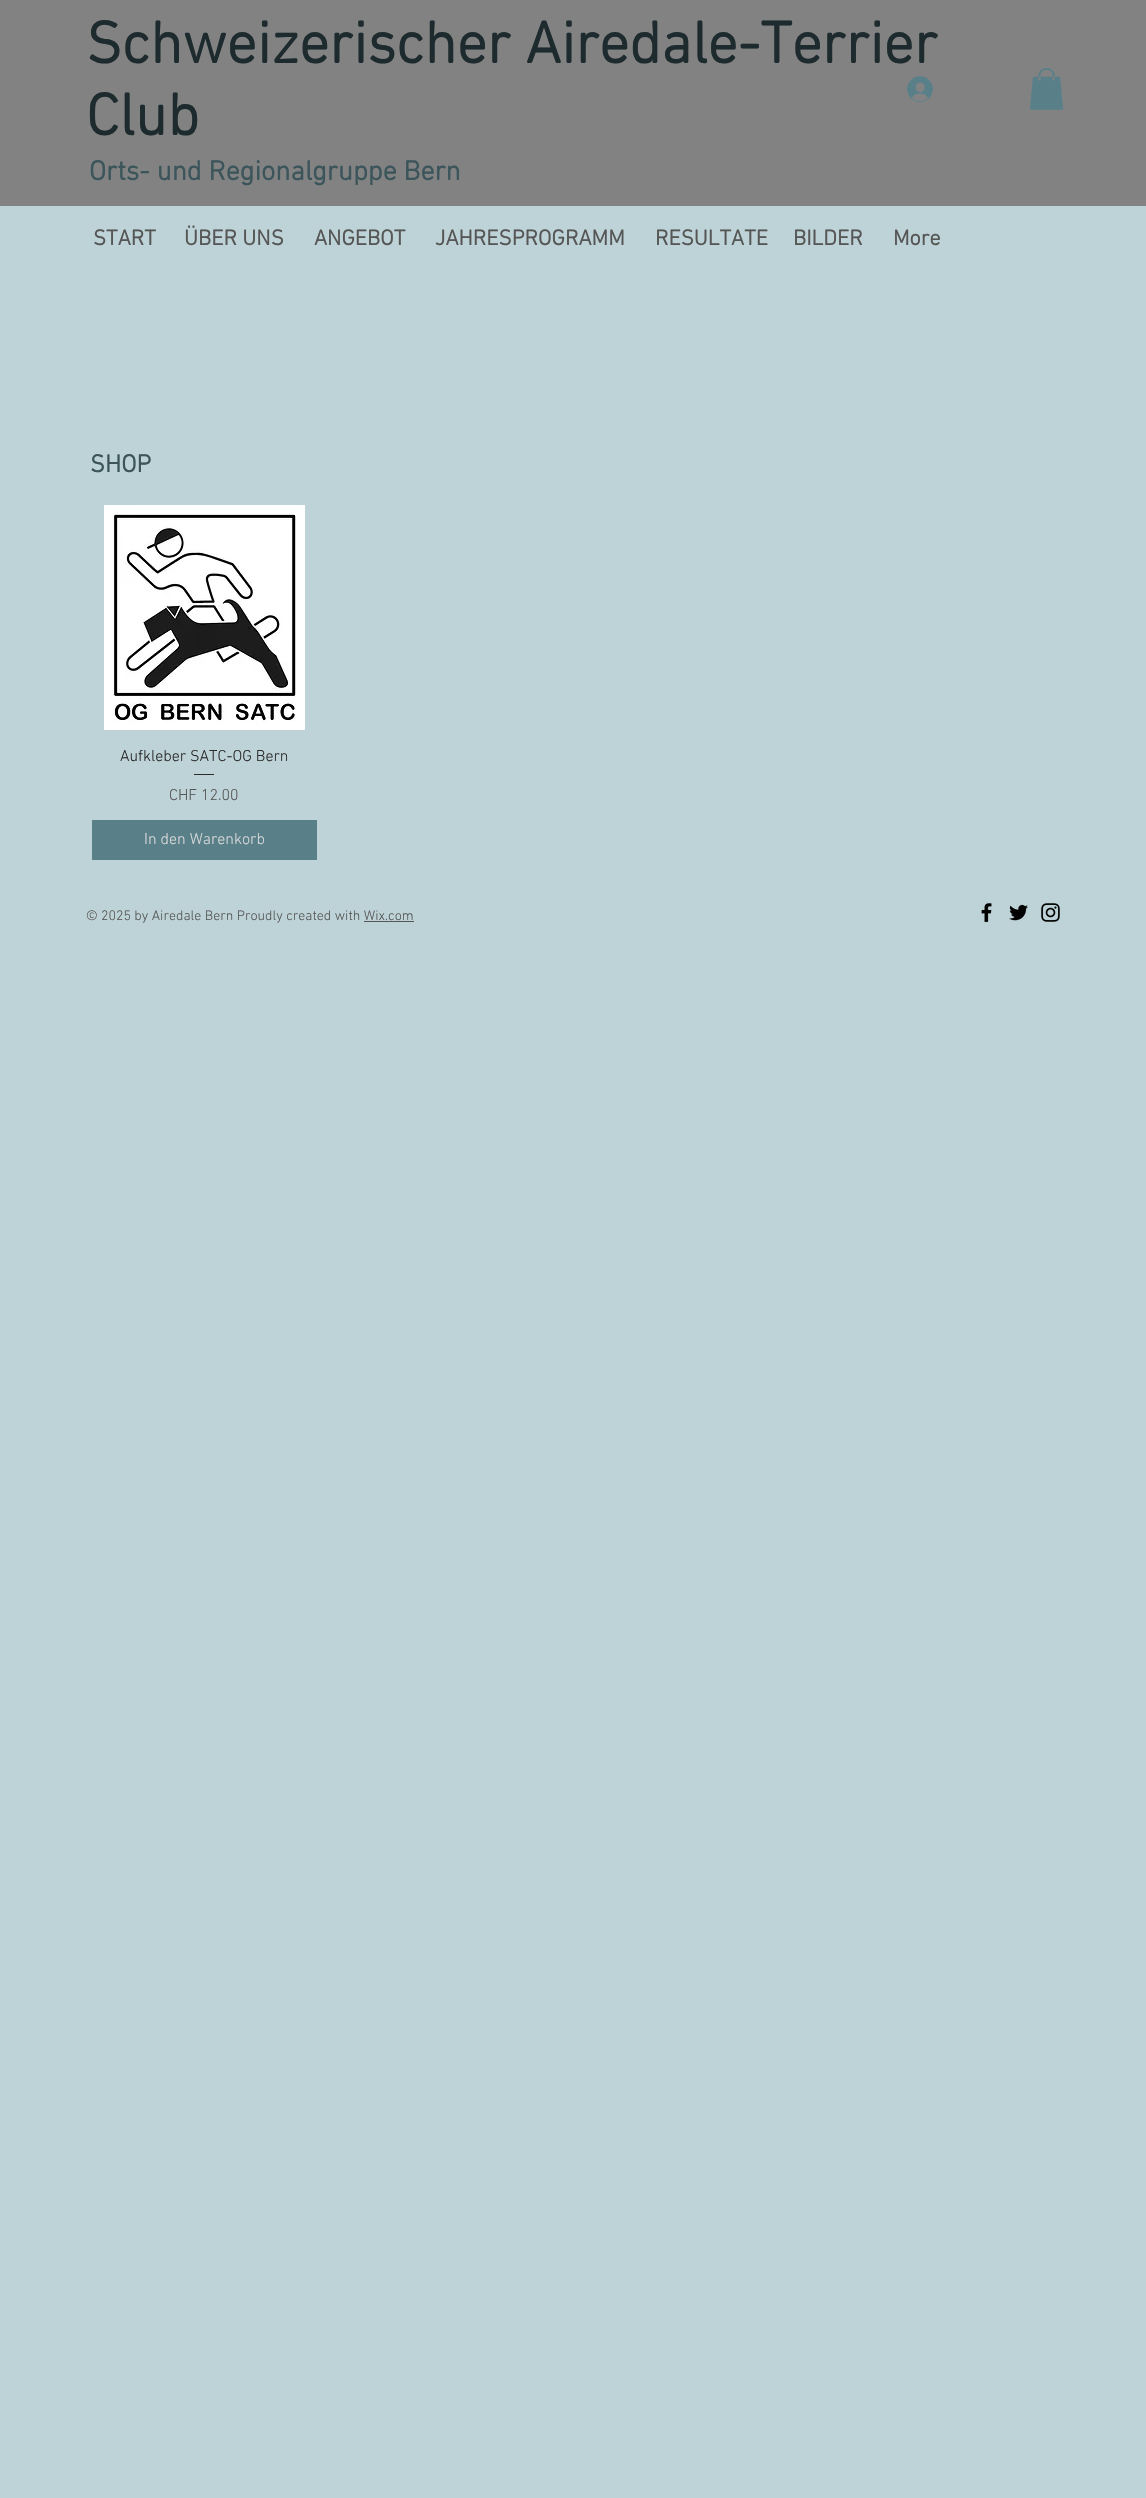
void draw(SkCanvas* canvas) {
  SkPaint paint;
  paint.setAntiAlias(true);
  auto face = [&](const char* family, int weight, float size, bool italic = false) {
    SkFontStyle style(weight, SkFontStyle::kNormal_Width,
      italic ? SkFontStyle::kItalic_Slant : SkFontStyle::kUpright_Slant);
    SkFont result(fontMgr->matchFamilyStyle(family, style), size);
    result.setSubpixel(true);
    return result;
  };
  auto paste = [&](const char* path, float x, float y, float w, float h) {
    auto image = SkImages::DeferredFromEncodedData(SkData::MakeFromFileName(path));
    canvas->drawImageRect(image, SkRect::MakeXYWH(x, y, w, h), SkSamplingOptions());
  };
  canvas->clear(0xffbed3d8);
  paint.setColor(0xff828282);
  canvas->drawRect(SkRect::MakeXYWH(0, 0, 1146, 206), paint);
  paste("img/1.png", 1030, 68, 34, 42);
  paste("img/2.png", 907, 76, 26, 26);
  paste("img/3.png", 104, 505, 201, 225);
  {
    const struct { float x, y, w, h; SkColor color; } items[] = {
      {194, 774, 20, 1, 0xff2b2b2b},
      {92, 820, 225, 40, 0xff598089},
      {364, 921, 50, 1, 0xff565656},
    };
    for (auto [x, y, w, h, color] : items) {
      paint.setColor(color);
      canvas->drawRect(SkRect::MakeXYWH(x, y, w, h), paint);
    }
  }
  paste("img/4.png", 981, 903, 11, 20);
  paste("img/5.png", 1009, 904, 19, 17);
  paste("img/6.png", 1041, 903, 19, 19);
  auto f0 = face("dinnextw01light", 700, 60);
  paint.setColor(0xff1e2b2e);
  canvas->drawString("Schweizerischer Airedale-Terrier", 86, 63, f0, paint);
  canvas->drawString("Club", 86, 135, f0, paint);
  auto f1 = face("dinnextw01light", 700, 28);
  paint.setColor(0xff3b555b);
  canvas->drawString("Orts- und Regionalgruppe Bern", 89, 180, f1, paint);
  auto f2 = face("dinnextw01light", 700, 22);
  paint.setColor(0xff565656);
  {
    const struct { const char* s; float x, y; } items[] = {
      {"START", 93, 245},
      {"ÜBER UNS", 184, 245},
      {"ANGEBOT", 314, 245},
      {"JAHRESPROGRAMM", 435, 245},
      {"RESULTATE", 655, 245},
      {"BILDER", 793, 245},
      {"More", 893, 245},
    };
    for (auto [s, x, y] : items) {
      canvas->drawString(s, x, y, f2, paint);
    }
  }
  auto f3 = face("dinnextw01light", 700, 25);
  paint.setColor(0xff3b555b);
  canvas->drawString("SHOP", 90, 472, f3, paint);
  auto f4 = face("dinnextw01light", 300, 16);
  paint.setColor(0xff2b2b2b);
  canvas->drawString("Aufkleber SATC-OG Bern", 120, 761, f4, paint);
  paint.setColor(0xff565656);
  canvas->drawString("CHF 12.00", 169, 800, f4, paint);
  paint.setColor(0xffd8d8d8);
  canvas->drawString("In den Warenkorb", 144, 844, f4, paint);
  auto f5 = face("dinnextw01light", 300, 14);
  paint.setColor(0xff565656);
  canvas->drawString("© 2025 by Airedale Bern Proudly created with Wix.com", 86, 920, f5, paint);
}
